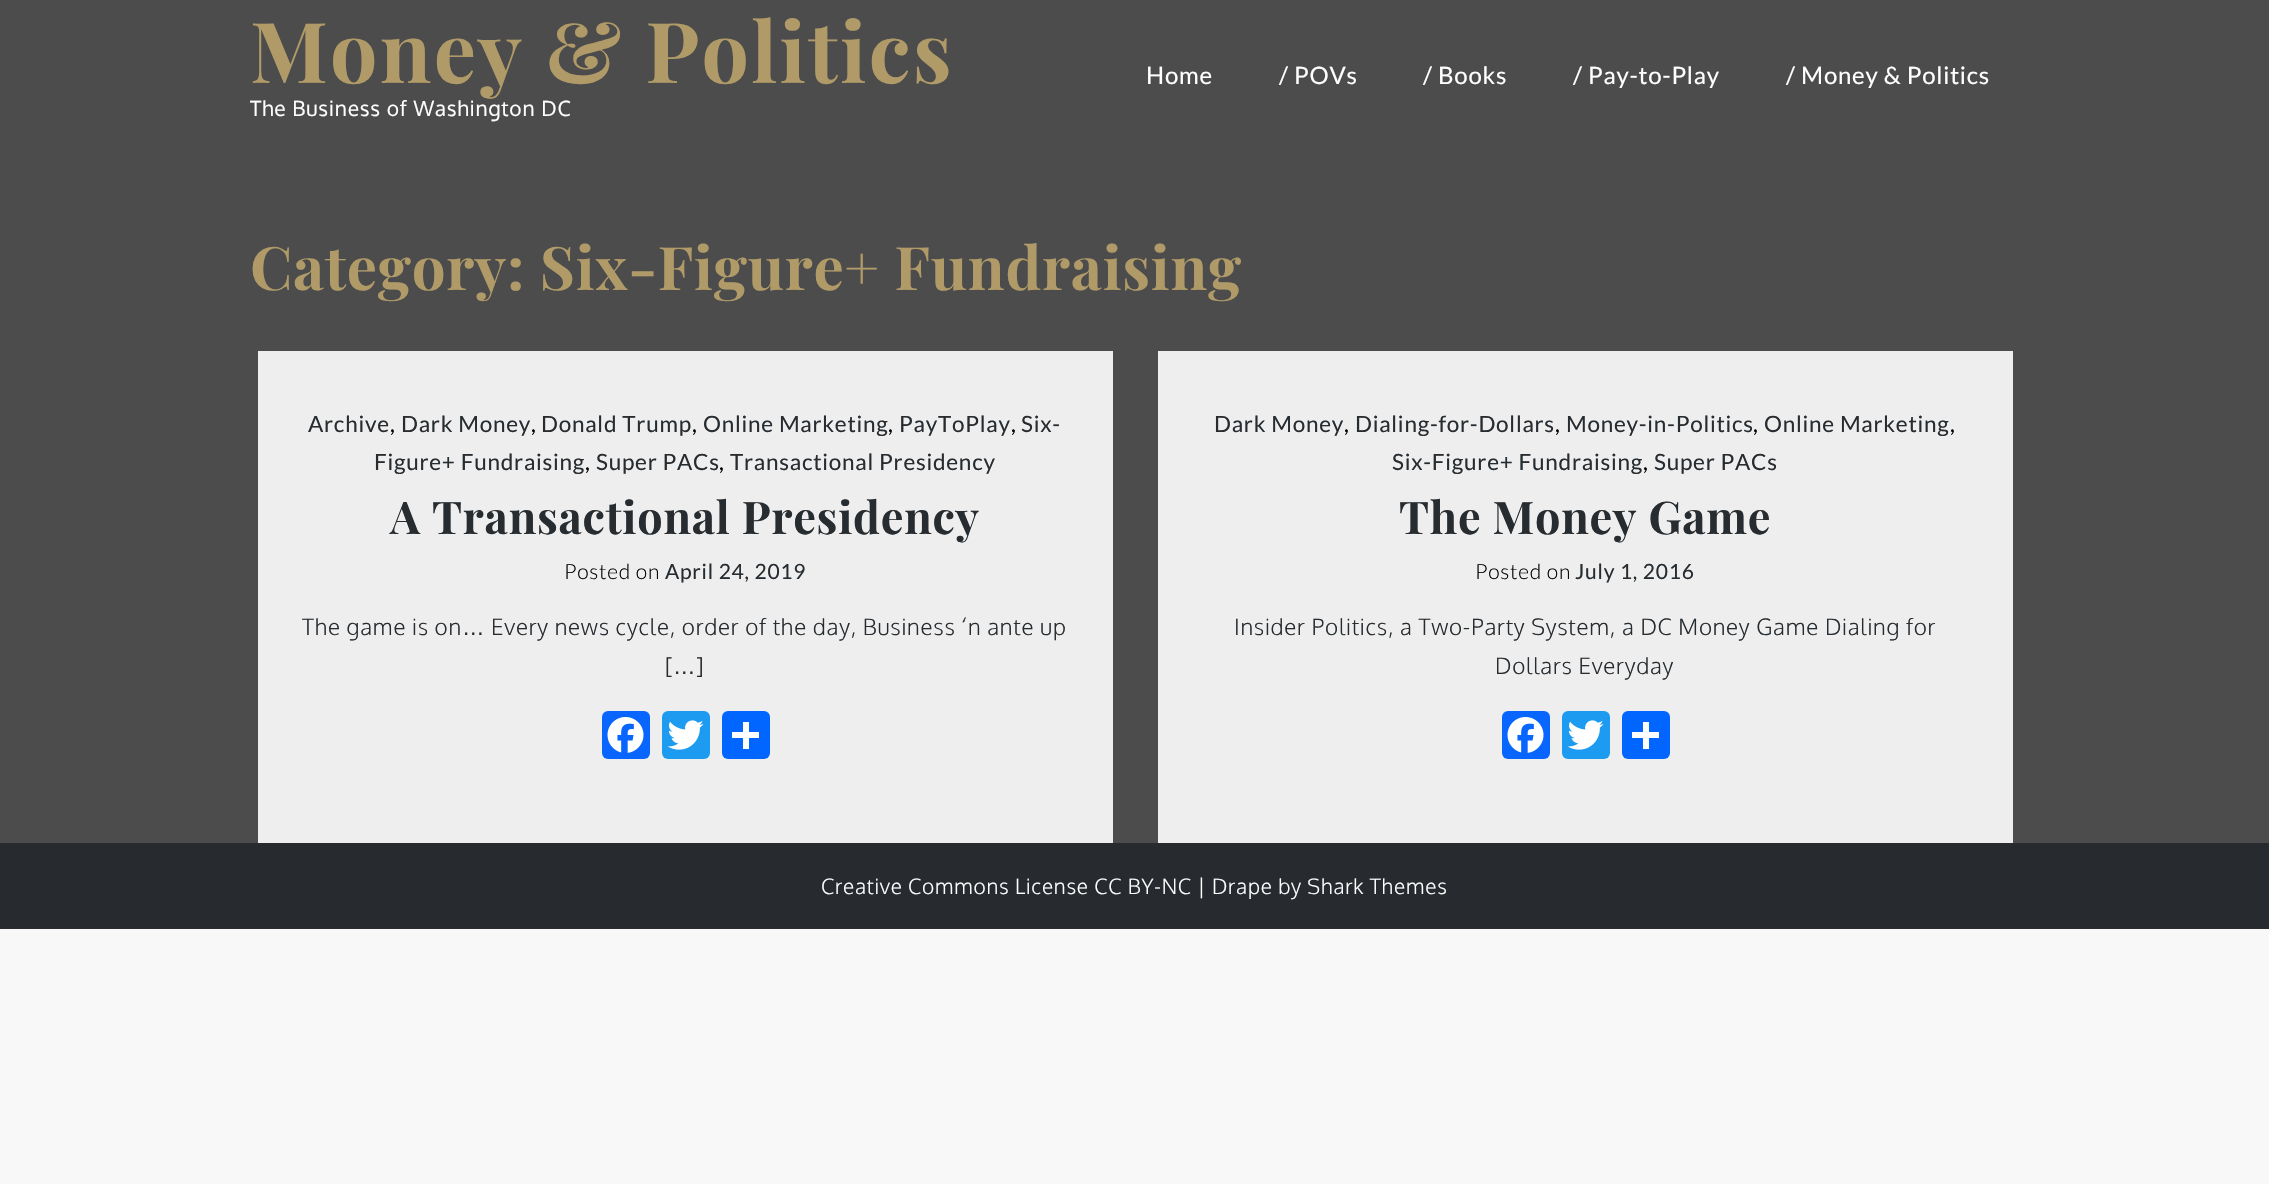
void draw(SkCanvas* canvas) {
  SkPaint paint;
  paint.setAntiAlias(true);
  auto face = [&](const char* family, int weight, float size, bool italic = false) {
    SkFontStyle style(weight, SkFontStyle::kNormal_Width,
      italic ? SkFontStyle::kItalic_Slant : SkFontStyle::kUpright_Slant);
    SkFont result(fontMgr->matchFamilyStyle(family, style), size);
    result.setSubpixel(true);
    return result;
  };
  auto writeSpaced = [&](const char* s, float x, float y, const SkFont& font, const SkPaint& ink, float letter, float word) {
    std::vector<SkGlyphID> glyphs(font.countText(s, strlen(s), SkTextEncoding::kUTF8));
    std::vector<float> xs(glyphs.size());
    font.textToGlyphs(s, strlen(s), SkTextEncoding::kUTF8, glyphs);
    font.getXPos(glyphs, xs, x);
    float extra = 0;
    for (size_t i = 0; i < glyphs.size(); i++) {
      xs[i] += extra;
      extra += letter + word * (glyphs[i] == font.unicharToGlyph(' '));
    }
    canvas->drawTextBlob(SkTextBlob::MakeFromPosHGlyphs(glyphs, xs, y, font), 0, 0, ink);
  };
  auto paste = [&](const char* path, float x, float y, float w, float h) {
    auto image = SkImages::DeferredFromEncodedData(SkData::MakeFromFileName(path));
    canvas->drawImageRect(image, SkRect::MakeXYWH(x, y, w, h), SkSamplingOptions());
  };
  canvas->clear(0xfff8f8f8);
  paint.setColor(0xff4c4c4c);
  canvas->drawRect(SkRect::MakeXYWH(0, 0, 2269, 843), paint);
  paint.setColor(0xffeeeeee);
  canvas->drawRect(SkRect::MakeXYWH(258, 351, 855, 492), paint);
  paint.setColor(0xff0866ff);
  canvas->drawRoundRect(SkRect::MakeXYWH(602, 711, 48, 48), 6, 6, paint);
  paste("img/1.png", 607, 717, 37, 36);
  paint.setColor(0xff1d9bf0);
  canvas->drawRoundRect(SkRect::MakeXYWH(662, 711, 48, 48), 6, 6, paint);
  paste("img/2.png", 667, 720, 37, 30);
  paint.setColor(0xff0166ff);
  canvas->drawRoundRect(SkRect::MakeXYWH(722, 711, 48, 48), 6, 6, paint);
  {
    const struct { float x, y, w, h; SkColor color; } items[] = {
      {743, 722, 6, 27, 0xffffffff},
      {732, 732, 27, 6, 0xffffffff},
      {1158, 351, 855, 492, 0xffeeeeee},
    };
    for (auto [x, y, w, h, color] : items) {
      paint.setColor(color);
      canvas->drawRect(SkRect::MakeXYWH(x, y, w, h), paint);
    }
  }
  paint.setColor(0xff0866ff);
  canvas->drawRoundRect(SkRect::MakeXYWH(1502, 711, 48, 48), 6, 6, paint);
  paste("img/1.png", 1507, 717, 37, 36);
  paint.setColor(0xff1d9bf0);
  canvas->drawRoundRect(SkRect::MakeXYWH(1562, 711, 48, 48), 6, 6, paint);
  paste("img/2.png", 1567, 720, 37, 30);
  paint.setColor(0xff0166ff);
  canvas->drawRoundRect(SkRect::MakeXYWH(1622, 711, 48, 48), 6, 6, paint);
  {
    const struct { float x, y, w, h; SkColor color; } items[] = {
      {1643, 722, 6, 27, 0xffffffff},
      {1632, 732, 27, 6, 0xffffffff},
      {0, 843, 2269, 86, 0xff272b2f},
    };
    for (auto [x, y, w, h, color] : items) {
      paint.setColor(color);
      canvas->drawRect(SkRect::MakeXYWH(x, y, w, h), paint);
    }
  }
  auto f0 = face("Playfair Display", 700, 84);
  paint.setColor(0xffb09a68);
  writeSpaced("Money & Politics", 250, 83, f0, paint, 2.25f, 0);
  auto f1 = face("Oxygen", 400, 21);
  paint.setColor(0xffffffff);
  writeSpaced("The Business of Washington DC", 250, 116, f1, paint, 0.75f, 0);
  auto f2 = face("Lato", 400, 24);
  {
    const struct { const char* s; float x, y; } items[] = {
      {"Home", 1146, 84},
      {"/ POVs", 1279, 84},
      {"/ Books", 1423, 84},
      {"/ Pay-to-Play", 1573, 84},
      {"/ Money & Politics", 1786, 84},
    };
    for (auto [s, x, y] : items) {
      writeSpaced(s, x, y, f2, paint, 0.75f, 0);
    }
  }
  auto f3 = face("Playfair Display", 700, 60);
  paint.setColor(0xffb09a68);
  writeSpaced("Category: Six-Figure+ Fundraising", 250, 290, f3, paint, 0.75f, 0);
  auto f4 = face("Lato", 400, 22.5f);
  paint.setColor(0xff272c30);
  writeSpaced("Archive", 308, 432, f4, paint, 0.75f, 0);
  paint.setColor(0xff000000);
  writeSpaced(",", 390, 432, f4, paint, 0.75f, 0);
  paint.setColor(0xff272c30);
  writeSpaced("Dark Money", 401, 432, f4, paint, 0.75f, 0);
  paint.setColor(0xff000000);
  writeSpaced(",", 531, 432, f4, paint, 0.75f, 0);
  paint.setColor(0xff272c30);
  writeSpaced("Donald Trump", 541, 432, f4, paint, 0.75f, 0);
  paint.setColor(0xff000000);
  writeSpaced(",", 692, 432, f4, paint, 0.75f, 0);
  paint.setColor(0xff272c30);
  writeSpaced("Online Marketing", 703, 432, f4, paint, 0.75f, 0);
  paint.setColor(0xff000000);
  writeSpaced(",", 888, 432, f4, paint, 0.75f, 0);
  paint.setColor(0xff272c30);
  writeSpaced("PayToPlay", 899, 432, f4, paint, 0.75f, 0);
  paint.setColor(0xff000000);
  writeSpaced(",", 1011, 432, f4, paint, 0.75f, 0);
  paint.setColor(0xff272c30);
  writeSpaced("Six-", 1021, 432, f4, paint, 0.75f, 0);
  writeSpaced("Figure+ Fundraising", 374, 470, f4, paint, 0.75f, 0);
  paint.setColor(0xff000000);
  writeSpaced(",", 585, 470, f4, paint, 0.75f, 0);
  paint.setColor(0xff272c30);
  writeSpaced("Super PACs", 596, 470, f4, paint, 0.75f, 0);
  paint.setColor(0xff000000);
  writeSpaced(",", 719, 470, f4, paint, 0.75f, 0);
  paint.setColor(0xff272c30);
  writeSpaced("Transactional Presidency", 730, 470, f4, paint, 0.75f, 0);
  auto f5 = face("Playfair Display", 700, 45);
  writeSpaced("A Transactional Presidency", 390, 534, f5, paint, 0.75f, 0);
  auto f6 = face("Lato", 300, 21);
  paint.setColor(0xff000000);
  writeSpaced("Posted on", 564, 579, f6, paint, 0.75f, 0);
  auto f7 = face("Lato", 400, 21);
  paint.setColor(0xff272c30);
  writeSpaced("April 24, 2019", 665, 579, f7, paint, 0.75f, 0);
  auto f8 = face("Oxygen", 300, 22.5f);
  writeSpaced("The game is on", 302, 635, f8, paint, 0.75f, 0);
  auto f9 = face("Liberation Sans", 400, 22.5f);
  writeSpaced("…", 462, 635, f9, paint, 0.75f, 0);
  writeSpaced("Every news cycle, order of the day, Business ‘n ante up", 491, 635, f8, paint, 0.75f, 0);
  writeSpaced("[", 665, 674, f8, paint, 0.75f, 0);
  writeSpaced("…", 673, 674, f9, paint, 0.75f, 0);
  writeSpaced("]", 696, 674, f8, paint, 0.75f, 0);
  writeSpaced("Dark Money", 1214, 432, f4, paint, 0.75f, 0);
  paint.setColor(0xff000000);
  writeSpaced(",", 1344, 432, f4, paint, 0.75f, 0);
  paint.setColor(0xff272c30);
  writeSpaced("Dialing-for-Dollars", 1355, 432, f4, paint, 0.75f, 0);
  paint.setColor(0xff000000);
  writeSpaced(",", 1555, 432, f4, paint, 0.75f, 0);
  paint.setColor(0xff272c30);
  writeSpaced("Money-in-Politics", 1566, 432, f4, paint, 0.75f, 0);
  paint.setColor(0xff000000);
  writeSpaced(",", 1753, 432, f4, paint, 0.75f, 0);
  paint.setColor(0xff272c30);
  writeSpaced("Online Marketing", 1764, 432, f4, paint, 0.75f, 0);
  paint.setColor(0xff000000);
  writeSpaced(",", 1950, 432, f4, paint, 0.75f, 0);
  paint.setColor(0xff272c30);
  writeSpaced("Six-Figure+ Fundraising", 1392, 470, f4, paint, 0.75f, 0);
  paint.setColor(0xff000000);
  writeSpaced(",", 1643, 470, f4, paint, 0.75f, 0);
  paint.setColor(0xff272c30);
  writeSpaced("Super PACs", 1654, 470, f4, paint, 0.75f, 0);
  writeSpaced("The Money Game", 1399, 534, f5, paint, 0.75f, 0);
  paint.setColor(0xff000000);
  writeSpaced("Posted on", 1475, 579, f6, paint, 0.75f, 0);
  paint.setColor(0xff272c30);
  writeSpaced("July 1, 2016", 1575, 579, f7, paint, 0.75f, 0);
  writeSpaced("Insider Politics, a Two-Party System, a DC Money Game Dialing for", 1234, 635, f8, paint, 0.75f, 0);
  writeSpaced("Dollars Everyday", 1495, 674, f8, paint, 0.75f, 0);
  auto f10 = face("Oxygen", 300, 21);
  paint.setColor(0xffffffff);
  writeSpaced("Creative Commons License CC BY-NC | Drape by Shark Themes", 821, 894, f10, paint, 0.75f, 0);
}
